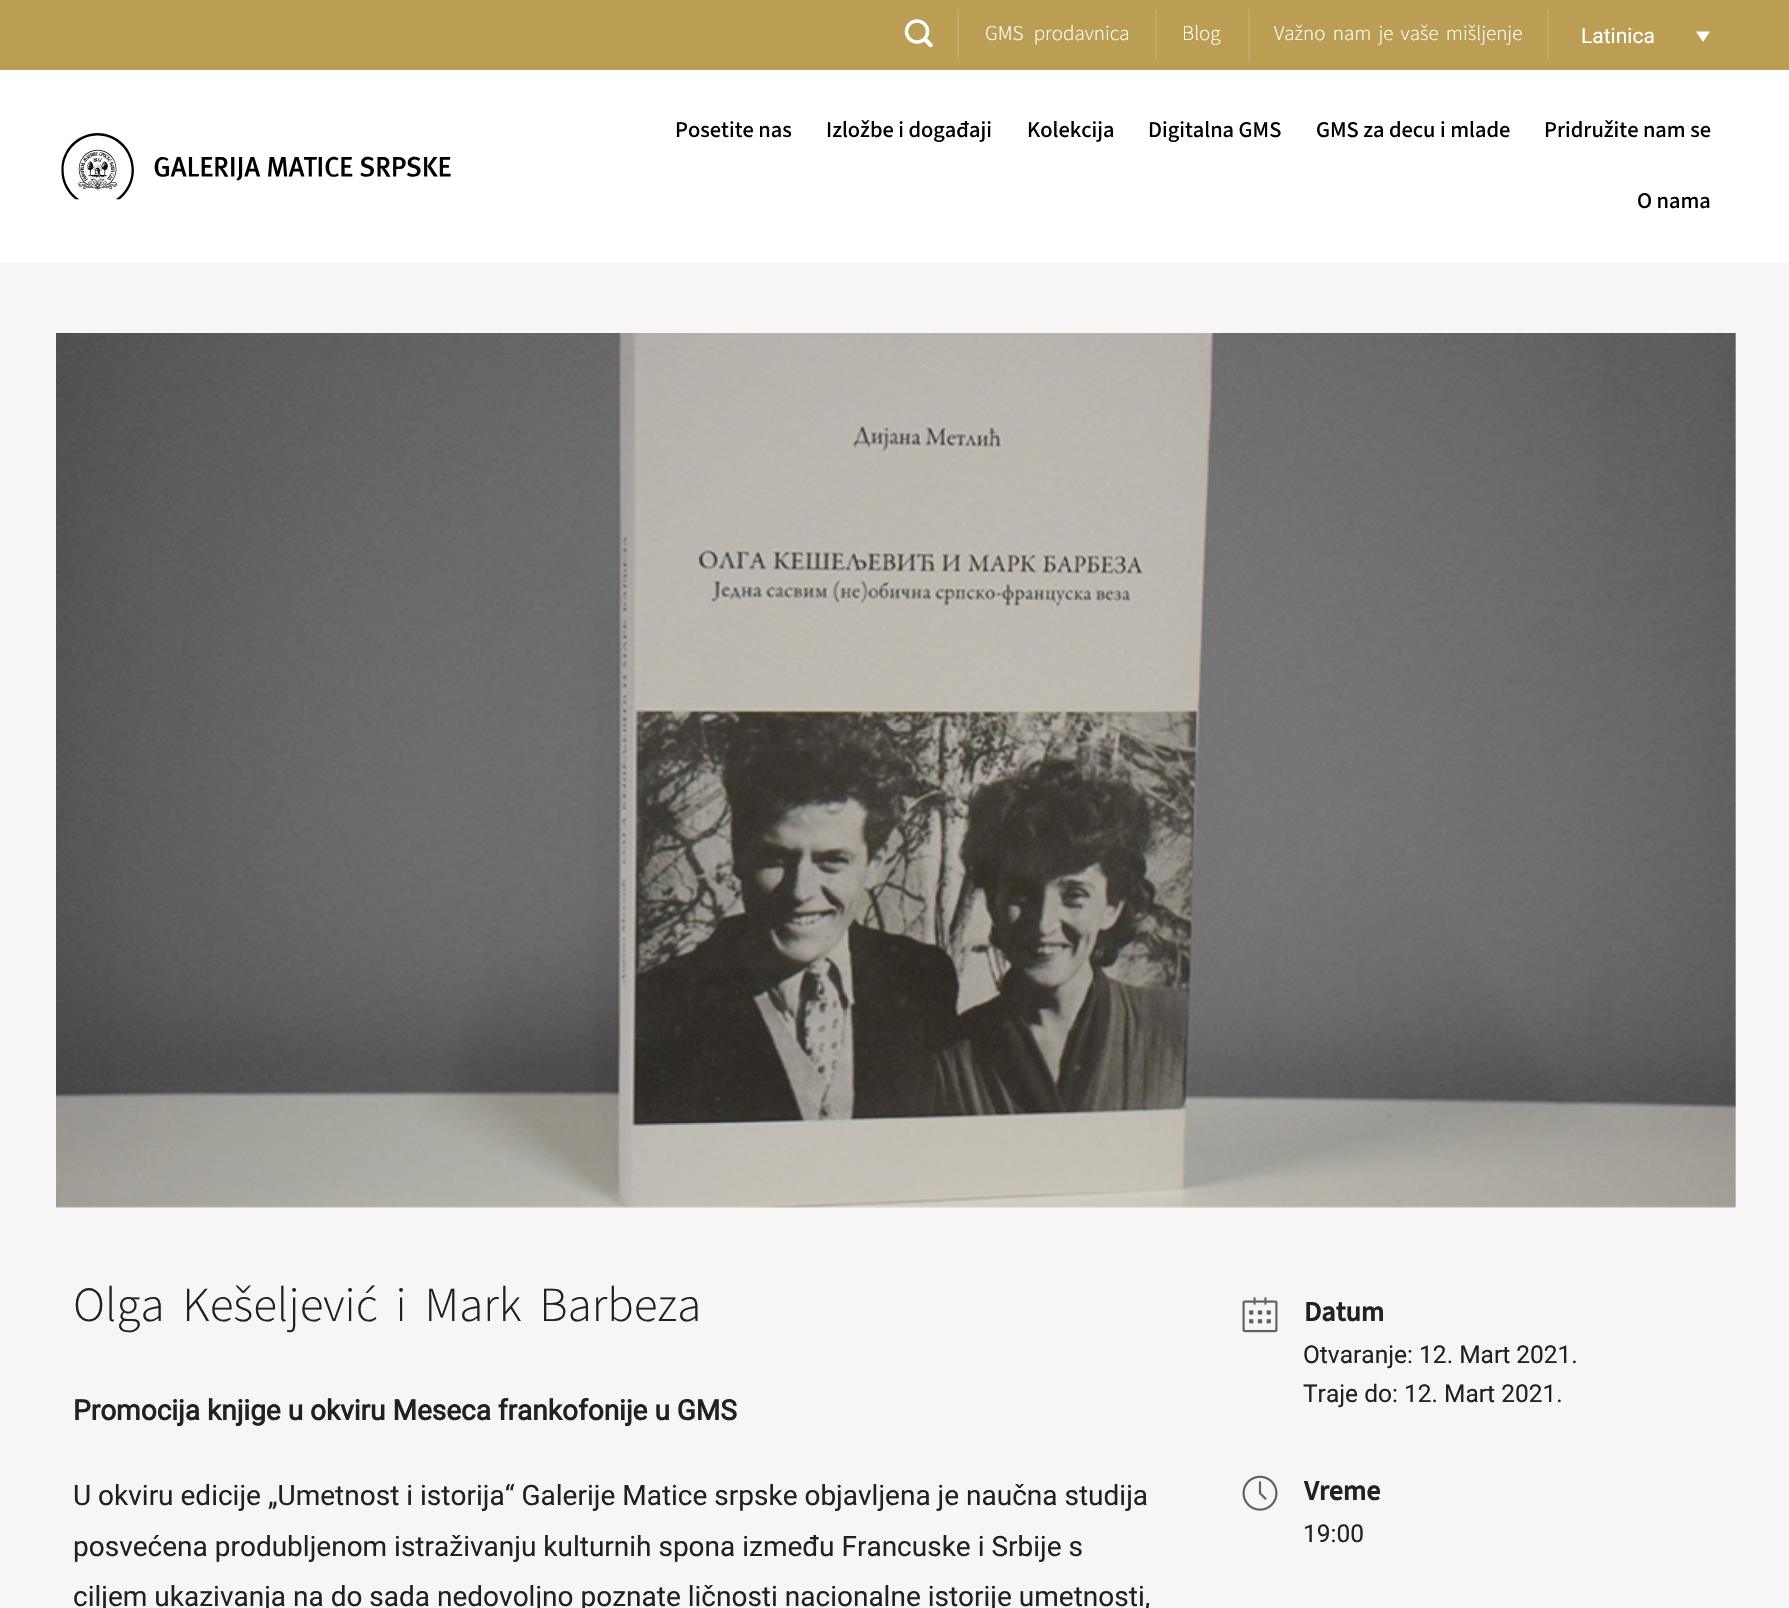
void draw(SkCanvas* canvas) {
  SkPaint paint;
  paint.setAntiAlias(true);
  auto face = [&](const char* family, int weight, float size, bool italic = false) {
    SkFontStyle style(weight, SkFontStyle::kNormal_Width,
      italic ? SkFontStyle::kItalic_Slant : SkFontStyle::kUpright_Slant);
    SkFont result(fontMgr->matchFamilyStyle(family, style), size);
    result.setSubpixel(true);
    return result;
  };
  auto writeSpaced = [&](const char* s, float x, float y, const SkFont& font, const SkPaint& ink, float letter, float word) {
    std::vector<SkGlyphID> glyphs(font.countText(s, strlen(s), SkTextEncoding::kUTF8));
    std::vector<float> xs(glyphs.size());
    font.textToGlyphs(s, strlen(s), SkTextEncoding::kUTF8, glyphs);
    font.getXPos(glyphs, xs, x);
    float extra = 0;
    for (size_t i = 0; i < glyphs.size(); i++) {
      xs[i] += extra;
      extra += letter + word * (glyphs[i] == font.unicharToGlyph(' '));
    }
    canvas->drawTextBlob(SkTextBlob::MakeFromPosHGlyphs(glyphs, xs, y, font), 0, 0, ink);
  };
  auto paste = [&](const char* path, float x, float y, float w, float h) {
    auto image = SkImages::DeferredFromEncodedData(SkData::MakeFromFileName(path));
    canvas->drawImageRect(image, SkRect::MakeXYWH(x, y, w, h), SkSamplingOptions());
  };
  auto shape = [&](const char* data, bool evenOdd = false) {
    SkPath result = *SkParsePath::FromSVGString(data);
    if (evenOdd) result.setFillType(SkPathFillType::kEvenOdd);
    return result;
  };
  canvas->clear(0xffffffff);
  paint.setColor(0xffbc9d54);
  canvas->drawRect(SkRect::MakeXYWH(0, 0, 1789, 70), paint);
  paste("img/1.png", 904, 19, 29, 29);
  {
    const struct { float x, y, w, h; SkColor color; } items[] = {
      {957, 9, 2, 52, 0xffc3a765},
      {1155, 9, 2, 52, 0xffc3a765},
      {1248, 9, 2, 52, 0xffc3a765},
      {1547, 9, 2, 52, 0xffc3a765},
    };
    for (auto [x, y, w, h, color] : items) {
      paint.setColor(color);
      canvas->drawRect(SkRect::MakeXYWH(x, y, w, h), paint);
    }
  }
  paint.setColor(0xffffffff);
  canvas->drawPath(shape("M1696 31.5H1710L1703 42Z"), paint);
  paste("img/2.png", 61, 133, 390, 67);
  paint.setColor(0xfff6f6f6);
  canvas->drawRect(SkRect::MakeXYWH(0, 263, 1789, 1345), paint);
  paste("img/3.png", 56, 333, 1680, 875);
  paste("img/4.png", 1242, 1297, 36, 36);
  paste("img/5.png", 1242, 1475, 36, 36);
  auto f0 = face("Source Sans 3", 300, 21);
  paint.setColor(0xffffffff);
  writeSpaced("GMS prodavnica", 985, 40, f0, paint, 0, 6);
  canvas->drawString("Blog", 1182, 40, f0, paint);
  writeSpaced("Važno nam je vaše mišljenje", 1274, 40, f0, paint, 0, 3);
  auto f1 = face("Roboto", 400, 21);
  canvas->drawString("Latinica", 1581, 43, f1, paint);
  auto f2 = face("Source Sans 3", 500, 22.5f);
  paint.setColor(0xff000000);
  {
    const struct { const char* s; float x, y; } items[] = {
      {"Posetite nas", 675, 137},
      {"Izložbe i događaji", 826, 137},
      {"Kolekcija", 1027, 137},
      {"Digitalna GMS", 1148, 137},
      {"GMS za decu i mlade", 1316, 137},
      {"Pridružite nam se", 1544, 137},
      {"O nama", 1637, 208},
    };
    for (auto [s, x, y] : items) {
      canvas->drawString(s, x, y, f2, paint);
    }
  }
  auto f3 = face("Source Sans 3", 300, 49);
  paint.setColor(0xff212121);
  writeSpaced("Olga Kešeljević i Mark Barbeza", 73, 1321, f3, paint, 0, 8);
  auto f4 = face("Roboto", 700, 28);
  canvas->drawString("Promocija knjige u okviru Meseca frankofonije u GMS", 73, 1420, f4, paint);
  auto f5 = face("Roboto", 400, 28);
  {
    const struct { const char* s; float x, y; } items[] = {
      {"U okviru edicije „Umetnost i istorija“ Galerije Matice srpske objavljena je naučna studija", 73, 1505},
      {"posvećena produbljenom istraživanju kulturnih spona između Francuske i Srbije s", 73, 1556},
      {"ciljem ukazivanja na do sada nedovoljno poznate ličnosti nacionalne istorije umetnosti,", 73, 1606},
    };
    for (auto [s, x, y] : items) {
      canvas->drawString(s, x, y, f5, paint);
    }
  }
  auto f6 = face("Source Sans 3", 700, 28);
  canvas->drawString("Datum", 1304, 1321, f6, paint);
  auto f7 = face("Roboto", 400, 24.5f);
  canvas->drawString("Otvaranje: 12. Mart 2021.", 1303, 1363, f7, paint);
  canvas->drawString("Traje do: 12. Mart 2021.", 1303, 1402, f7, paint);
  canvas->drawString("Vreme", 1304, 1500, f6, paint);
  canvas->drawString("19:00", 1303, 1542, f7, paint);
}
